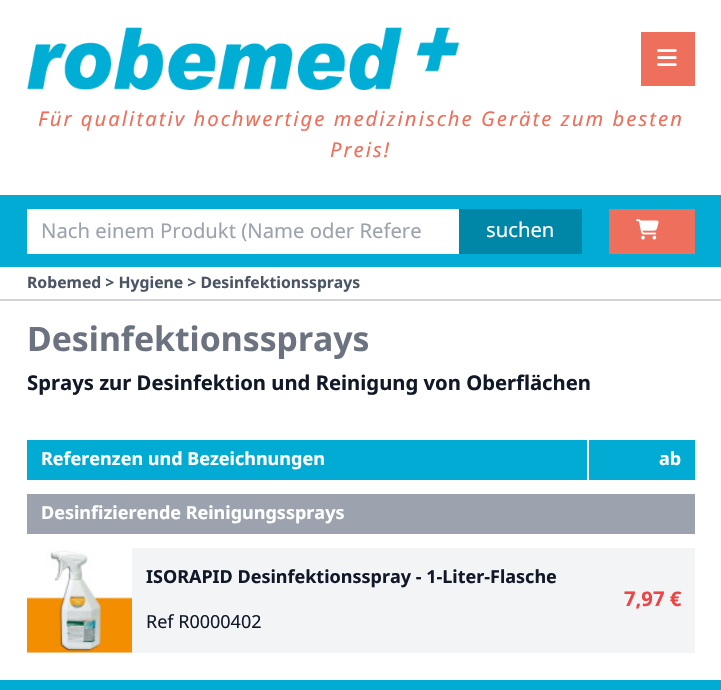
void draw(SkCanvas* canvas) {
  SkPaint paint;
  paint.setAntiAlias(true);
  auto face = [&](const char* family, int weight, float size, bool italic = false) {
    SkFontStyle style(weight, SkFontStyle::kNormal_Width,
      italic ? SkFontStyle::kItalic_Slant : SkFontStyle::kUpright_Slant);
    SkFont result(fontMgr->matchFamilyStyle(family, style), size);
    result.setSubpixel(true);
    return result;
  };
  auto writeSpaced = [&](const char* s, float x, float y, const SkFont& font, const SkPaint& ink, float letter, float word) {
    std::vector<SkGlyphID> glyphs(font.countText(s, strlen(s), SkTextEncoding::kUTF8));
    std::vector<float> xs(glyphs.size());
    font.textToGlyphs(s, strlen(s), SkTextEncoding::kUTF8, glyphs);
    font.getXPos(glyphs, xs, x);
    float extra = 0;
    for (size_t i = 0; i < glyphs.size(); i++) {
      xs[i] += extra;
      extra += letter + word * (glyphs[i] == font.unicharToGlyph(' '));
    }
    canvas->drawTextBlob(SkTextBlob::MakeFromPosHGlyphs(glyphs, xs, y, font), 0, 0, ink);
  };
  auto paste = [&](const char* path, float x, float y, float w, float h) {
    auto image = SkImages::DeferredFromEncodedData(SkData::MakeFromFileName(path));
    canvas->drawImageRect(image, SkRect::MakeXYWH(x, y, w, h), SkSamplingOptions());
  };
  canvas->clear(0xffffffff);
  paste("img/1.png", 27, 27, 432, 63);
  paint.setColor(0xffee6f5b);
  canvas->drawRect(SkRect::MakeXYWH(641, 32, 54, 54), paint);
  paste("img/2.png", 657, 49, 20, 17);
  {
    const struct { float x, y, w, h; SkColor color; } items[] = {
      {0, 195, 721, 72, 0xff01abd4},
      {27, 209, 432, 45, 0xffffffff},
      {459, 209, 123, 45, 0xff0086a6},
      {609, 209, 86, 45, 0xffee6f5b},
    };
    for (auto [x, y, w, h, color] : items) {
      paint.setColor(color);
      canvas->drawRect(SkRect::MakeXYWH(x, y, w, h), paint);
    }
  }
  paste("img/3.png", 636, 219, 23, 21);
  {
    const struct { float x, y, w, h; SkColor color; } items[] = {
      {0, 299, 721, 2, 0xffd1d5db},
      {27, 440, 668, 40, 0xff01abd4},
      {587, 440, 2, 40, 0xffffffff},
      {27, 494, 668, 40, 0xff9ca3af},
      {27, 548, 668, 105, 0xfff3f4f6},
    };
    for (auto [x, y, w, h, color] : items) {
      paint.setColor(color);
      canvas->drawRect(SkRect::MakeXYWH(x, y, w, h), paint);
    }
  }
  paste("img/4.png", 27, 548, 105, 105);
  paint.setColor(0xff01abd4);
  canvas->drawRect(SkRect::MakeXYWH(0, 680, 721, 10), paint);
  auto f0 = face("Noto Sans", 400, 20.25f, true);
  paint.setColor(0xffee6f5b);
  writeSpaced("Für qualitativ hochwertige medizinische Geräte zum besten", 38, 126, f0, paint, 2.03f, 0);
  writeSpaced("Preis!", 330, 157, f0, paint, 2.03f, 0);
  auto f1 = face("Noto Sans", 400, 20.25f);
  paint.setColor(0xff9ca3af);
  canvas->drawString("Nach einem Produkt (Name oder Refere", 41, 238, f1, paint);
  paint.setColor(0xffffffff);
  canvas->drawString("suchen", 486, 237, f1, paint);
  auto f2 = face("Noto Sans", 700, 15.75f);
  paint.setColor(0xff4b5563);
  canvas->drawString("Robemed > Hygiene > Desinfektionssprays", 27, 288, f2, paint);
  auto f3 = face("Noto Sans", 700, 33.75f);
  paint.setColor(0xff6b7280);
  canvas->drawString("Desinfektionssprays", 27, 351, f3, paint);
  auto f4 = face("Noto Sans", 700, 20.25f);
  paint.setColor(0xff111827);
  canvas->drawString("Sprays zur Desinfektion und Reinigung von Oberflächen", 27, 390, f4, paint);
  auto f5 = face("Noto Sans", 700, 18);
  paint.setColor(0xffffffff);
  {
    const struct { const char* s; float x, y; } items[] = {
      {"Referenzen und Bezeichnungen", 41, 465},
      {"ab", 659, 465},
      {"Desinfizierende Reinigungssprays", 41, 519},
    };
    for (auto [s, x, y] : items) {
      canvas->drawString(s, x, y, f5, paint);
    }
  }
  paint.setColor(0xff111827);
  canvas->drawString("ISORAPID Desinfektionsspray - 1-Liter-Flasche", 146, 583, f5, paint);
  auto f6 = face("Noto Sans", 400, 18);
  canvas->drawString("Ref R0000402", 146, 628, f6, paint);
  paint.setColor(0xffef4444);
  canvas->drawString("7,97 €", 624, 606, f4, paint);
}
